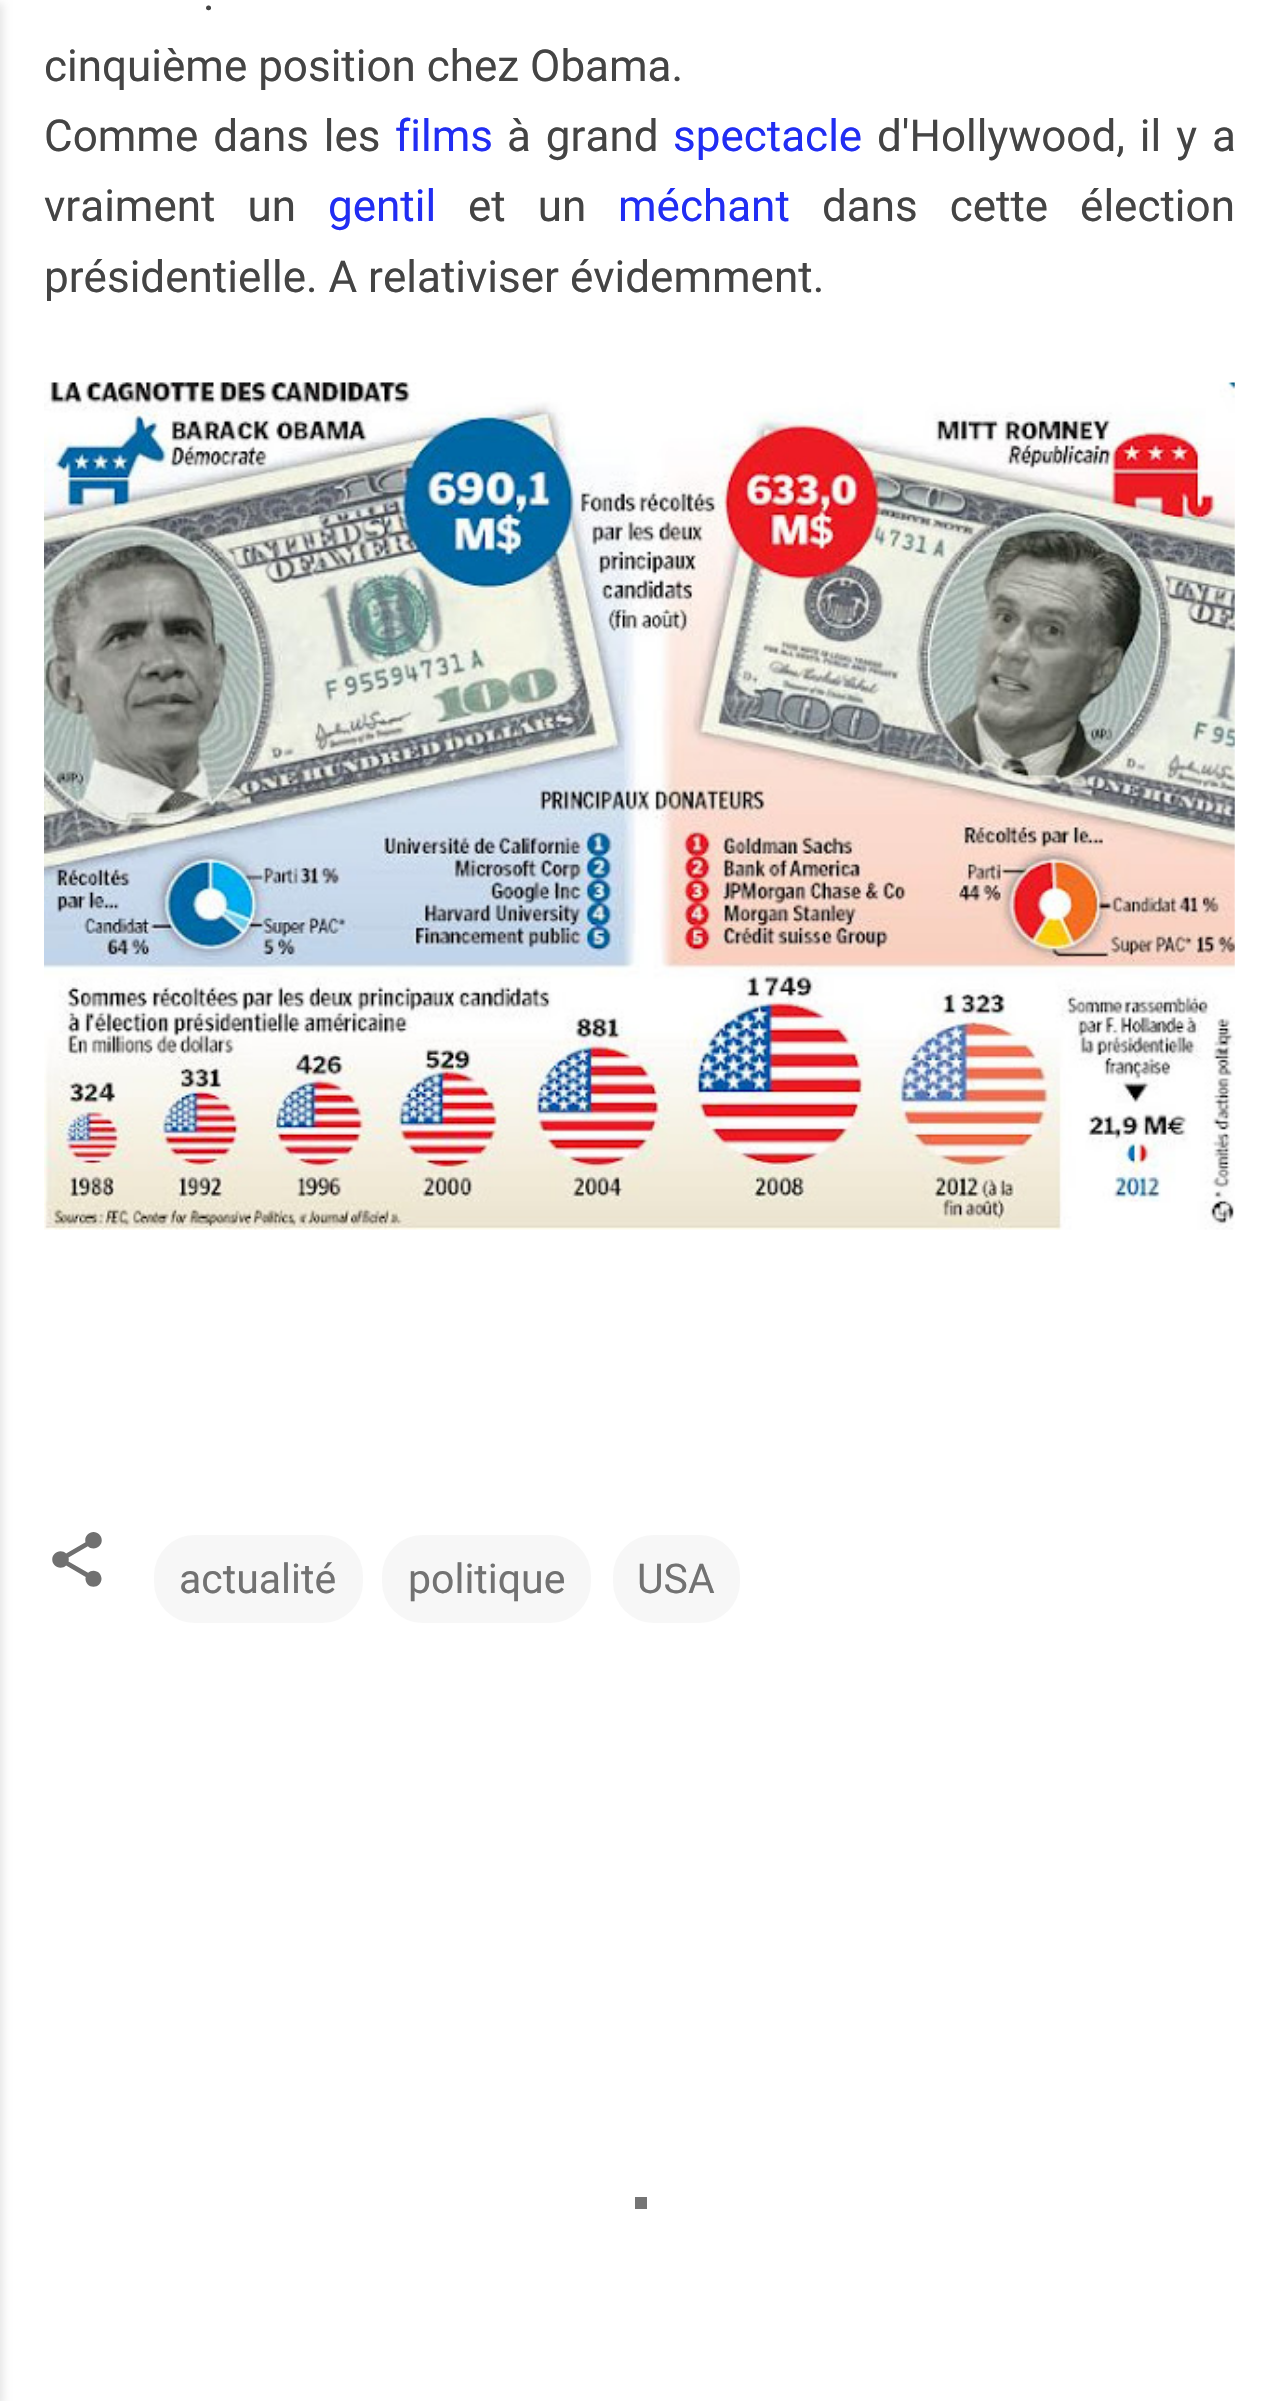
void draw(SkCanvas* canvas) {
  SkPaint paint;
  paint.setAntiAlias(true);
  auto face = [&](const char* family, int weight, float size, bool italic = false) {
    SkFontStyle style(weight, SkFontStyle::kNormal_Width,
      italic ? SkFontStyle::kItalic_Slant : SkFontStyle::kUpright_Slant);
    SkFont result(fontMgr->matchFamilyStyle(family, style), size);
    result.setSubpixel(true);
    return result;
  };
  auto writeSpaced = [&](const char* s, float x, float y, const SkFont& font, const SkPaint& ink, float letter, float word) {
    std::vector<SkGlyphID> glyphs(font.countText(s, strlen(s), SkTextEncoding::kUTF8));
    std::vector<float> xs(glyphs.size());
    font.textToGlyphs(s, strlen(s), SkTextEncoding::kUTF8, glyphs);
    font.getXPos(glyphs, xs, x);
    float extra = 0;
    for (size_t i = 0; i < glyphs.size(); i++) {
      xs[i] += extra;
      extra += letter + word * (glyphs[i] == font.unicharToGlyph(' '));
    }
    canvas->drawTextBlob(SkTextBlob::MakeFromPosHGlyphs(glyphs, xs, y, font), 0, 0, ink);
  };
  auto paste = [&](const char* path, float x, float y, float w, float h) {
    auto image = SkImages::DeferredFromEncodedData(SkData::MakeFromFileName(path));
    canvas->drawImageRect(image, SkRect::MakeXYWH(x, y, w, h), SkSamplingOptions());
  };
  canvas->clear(0xffffffff);
  paint.setColor(0x1a000000);
  paint.setMaskFilter(SkMaskFilter::MakeBlur(kNormal_SkBlurStyle, 4));
  canvas->drawRect(SkRect::MakeXYWH(-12, 3, 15, 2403), paint);
  paint.setMaskFilter(nullptr);
  paste("img/1.png", 44, 382, 1191, 848);
  paste("img/2.png", 52, 1532, 50, 55);
  paint.setColor(0xfff7f7f7);
  canvas->drawRoundRect(SkRect::MakeXYWH(154, 1535, 209, 88), 41, 41, paint);
  canvas->drawRoundRect(SkRect::MakeXYWH(382, 1535, 209, 88), 41, 41, paint);
  canvas->drawRoundRect(SkRect::MakeXYWH(613, 1535, 127, 88), 41, 41, paint);
  paint.setColor(0xff757575);
  canvas->drawRect(SkRect::MakeXYWH(635, 2197, 12, 12), paint);
  auto f0 = face("Roboto", 400, 44);
  paint.setColor(0xff444444);
  writeSpaced(".", 203, 10, f0, paint, 0, 19);
  canvas->drawString("cinquième position chez Obama.", 44, 81, f0, paint);
  writeSpaced("Comme dans les", 44, 151, f0, paint, 0, 4);
  paint.setColor(0xff212df3);
  canvas->drawString("films", 395, 151, f0, paint);
  paint.setColor(0xff444444);
  writeSpaced("à grand", 507, 151, f0, paint, 0, 4);
  paint.setColor(0xff212df3);
  canvas->drawString("spectacle", 673, 151, f0, paint);
  paint.setColor(0xff444444);
  writeSpaced("d'Hollywood, il y a", 877, 151, f0, paint, 0, 4);
  writeSpaced("vraiment un", 44, 221, f0, paint, 0, 21);
  paint.setColor(0xff212df3);
  canvas->drawString("gentil", 328, 221, f0, paint);
  paint.setColor(0xff444444);
  writeSpaced("et un", 468, 221, f0, paint, 0, 21);
  paint.setColor(0xff212df3);
  canvas->drawString("méchant", 618, 221, f0, paint);
  paint.setColor(0xff444444);
  writeSpaced("dans cette élection", 822, 221, f0, paint, 0, 21);
  canvas->drawString("présidentielle. A relativiser évidemment.", 44, 292, f0, paint);
  auto f1 = face("Roboto", 400, 41);
  paint.setColor(0xff727272);
  {
    const struct { const char* s; float x, y; } items[] = {
      {"actualité", 179, 1593},
      {"politique", 408, 1593},
      {"USA", 637, 1593},
    };
    for (auto [s, x, y] : items) {
      canvas->drawString(s, x, y, f1, paint);
    }
  }
}
